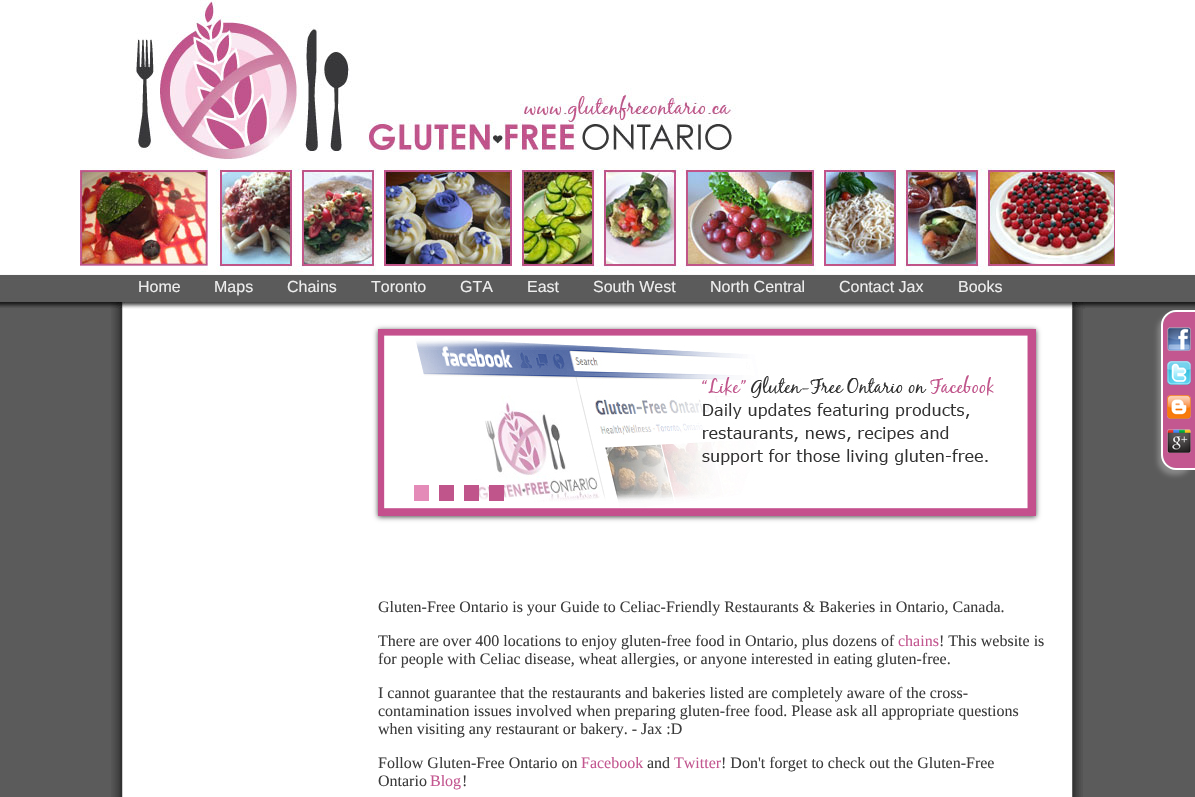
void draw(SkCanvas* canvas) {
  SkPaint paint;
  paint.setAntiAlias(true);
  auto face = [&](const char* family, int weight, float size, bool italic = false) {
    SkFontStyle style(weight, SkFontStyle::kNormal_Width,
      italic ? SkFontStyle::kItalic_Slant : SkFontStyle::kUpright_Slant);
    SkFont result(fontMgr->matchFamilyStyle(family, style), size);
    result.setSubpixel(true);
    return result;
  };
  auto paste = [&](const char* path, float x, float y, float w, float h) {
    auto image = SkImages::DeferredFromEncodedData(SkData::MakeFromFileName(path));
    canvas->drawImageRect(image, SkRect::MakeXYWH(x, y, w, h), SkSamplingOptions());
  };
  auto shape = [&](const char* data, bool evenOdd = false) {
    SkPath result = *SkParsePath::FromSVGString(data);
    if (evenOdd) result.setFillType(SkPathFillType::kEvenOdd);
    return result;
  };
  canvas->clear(0xff5b5b5b);
  paste("img/1.png", 0, 0, 1195, 308);
  paste("img/2.png", 80, 0, 1035, 272);
  paste("img/3.png", 110, 302, 975, 7);
  paste("img/4.png", 111, 309, 972, 488);
  paint.setColor(0xff4a4a4a);
  paint.setMaskFilter(SkMaskFilter::MakeBlur(kNormal_SkBlurStyle, 2.5f));
  canvas->drawRect(SkRect::MakeXYWH(378, 330, 658, 187), paint);
  paint.setMaskFilter(nullptr);
  paste("img/5.png", 378, 329, 658, 187);
  {
    const struct { float x, y, w, h; SkColor color; } items[] = {
      {414, 485, 15, 16, 0xffe48bb8},
      {439, 485, 15, 16, 0xffc0558b},
      {464, 485, 15, 16, 0xffc0558b},
      {489, 485, 15, 16, 0xffc0558b},
    };
    for (auto [x, y, w, h, color] : items) {
      paint.setColor(color);
      canvas->drawRect(SkRect::MakeXYWH(x, y, w, h), paint);
    }
  }
  paint.setColor(0xff888888);
  paint.setMaskFilter(SkMaskFilter::MakeBlur(kNormal_SkBlurStyle, 2.5f));
  canvas->drawRoundRect(SkRect::MakeXYWH(1158, 315, 34, 160), 15, 15, paint);
  paint.setMaskFilter(nullptr);
  paint.setColor(0xffc35790);
  canvas->drawPath(shape("M1176 312H1195V468H1176C1169 468 1163 462 1163 455V325C1163 318 1169 312 1176 312Z"), paint);
  paint.setColor(0xffffffff);
  canvas->drawPath(shape("M1176 310H1195V470H1176C1168 470 1161 463 1161 455V325C1161 317 1168 310 1176 310ZM1176 312H1195V468H1176C1169 468 1163 462 1163 455V325C1163 318 1169 312 1176 312Z", true), paint);
  paste("img/6.png", 1167, 327, 24, 24);
  paste("img/7.png", 1167, 361, 24, 24);
  paste("img/8.png", 1167, 395, 24, 24);
  paste("img/9.png", 1167, 429, 24, 24);
  auto f0 = face("Liberation Sans", 400, 16);
  paint.setColor(0xffeeeeee);
  {
    const struct { const char* s; float x, y; } items[] = {
      {"Home", 138, 292},
      {"Maps", 214, 292},
      {"Chains", 287, 292},
      {"Toronto", 371, 292},
      {"GTA", 460, 292},
      {"East", 527, 292},
      {"South West", 593, 292},
      {"North Central", 710, 292},
      {"Contact Jax", 839, 292},
      {"Books", 958, 292},
    };
    for (auto [s, x, y] : items) {
      canvas->drawString(s, x, y, f0, paint);
    }
  }
  auto f1 = face("Liberation Serif", 400, 16);
  paint.setColor(0xff3c3c3c);
  canvas->drawString("Gluten-Free Ontario is your Guide to Celiac-Friendly Restaurants & Bakeries in Ontario, Canada.", 378, 612, f1, paint);
  canvas->drawString("There are over 400 locations to enjoy gluten-free food in Ontario, plus dozens of", 378, 646, f1, paint);
  paint.setColor(0xffc35790);
  canvas->drawString("chains", 898, 646, f1, paint);
  paint.setColor(0xff3c3c3c);
  {
    const struct { const char* s; float x, y; } items[] = {
      {"! This website is", 939, 646},
      {"for people with Celiac disease, wheat allergies, or anyone interested in eating gluten-free.", 378, 664},
      {"I cannot guarantee that the restaurants and bakeries listed are completely aware of the cross-", 378, 698},
      {"contamination issues involved when preparing gluten-free food. Please ask all appropriate questions", 378, 716},
      {"when visiting any restaurant or bakery. - Jax :D", 378, 734},
      {"Follow Gluten-Free Ontario on", 378, 768},
    };
    for (auto [s, x, y] : items) {
      canvas->drawString(s, x, y, f1, paint);
    }
  }
  paint.setColor(0xffc35790);
  canvas->drawString("Facebook", 581, 768, f1, paint);
  paint.setColor(0xff3c3c3c);
  canvas->drawString("and", 647, 768, f1, paint);
  paint.setColor(0xffc35790);
  canvas->drawString("Twitter", 674, 768, f1, paint);
  paint.setColor(0xff3c3c3c);
  canvas->drawString("! Don't forget to check out the Gluten-Free", 721, 768, f1, paint);
  canvas->drawString("Ontario", 378, 786, f1, paint);
  paint.setColor(0xffc35790);
  canvas->drawString("Blog", 430, 786, f1, paint);
  paint.setColor(0xff3c3c3c);
  canvas->drawString("!", 462, 786, f1, paint);
}
